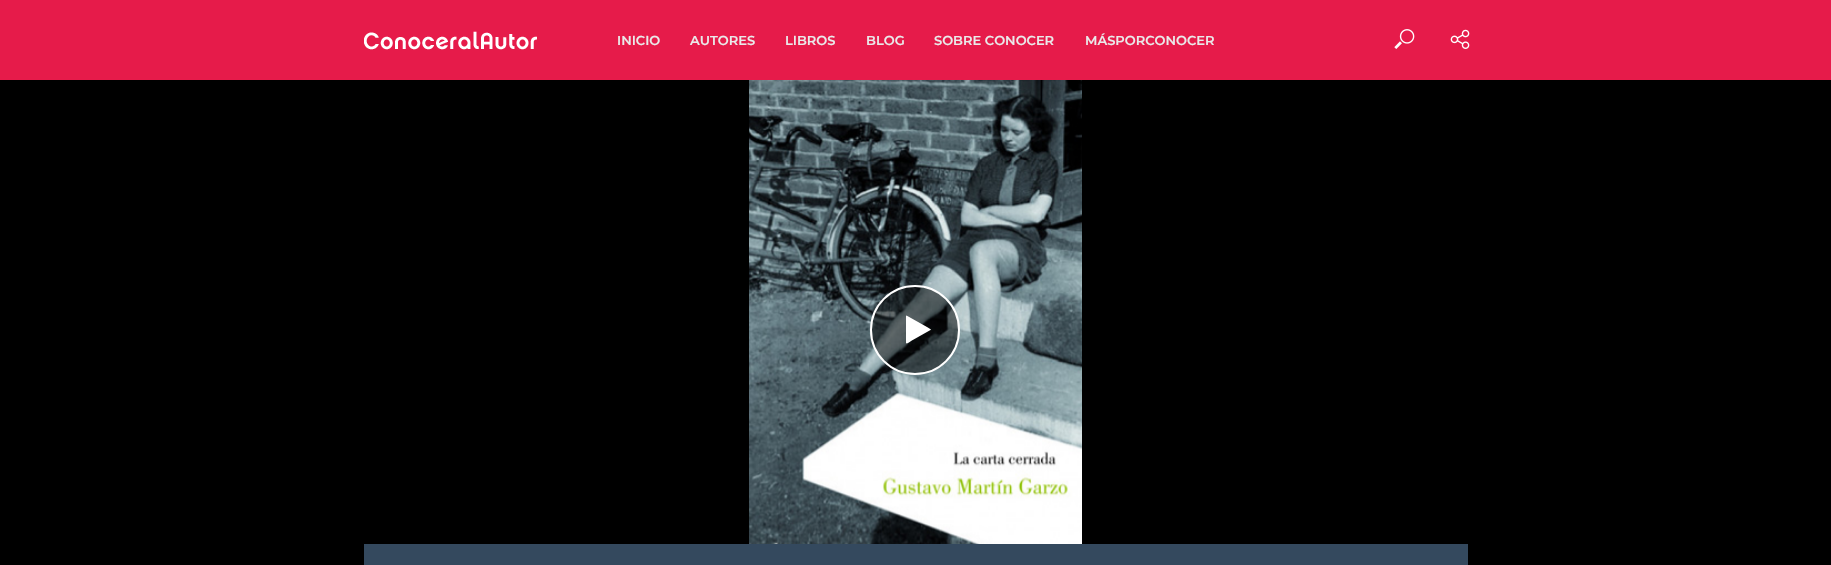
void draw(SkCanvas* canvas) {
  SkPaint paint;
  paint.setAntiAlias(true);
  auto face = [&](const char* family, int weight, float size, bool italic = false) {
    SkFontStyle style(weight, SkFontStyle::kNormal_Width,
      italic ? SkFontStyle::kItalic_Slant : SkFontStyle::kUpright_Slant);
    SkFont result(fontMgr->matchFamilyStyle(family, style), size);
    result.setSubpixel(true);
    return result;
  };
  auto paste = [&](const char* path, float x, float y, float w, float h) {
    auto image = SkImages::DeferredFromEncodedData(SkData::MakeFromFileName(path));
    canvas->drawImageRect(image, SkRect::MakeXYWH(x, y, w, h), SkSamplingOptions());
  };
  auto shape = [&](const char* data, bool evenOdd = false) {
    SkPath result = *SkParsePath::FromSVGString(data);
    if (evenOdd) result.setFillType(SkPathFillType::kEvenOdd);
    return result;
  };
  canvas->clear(0xffe61b4a);
  paint.setColor(0xff000000);
  canvas->drawRect(SkRect::MakeXYWH(0, 80, 1831, 485), paint);
  paste("img/4.png", 749, 80, 333, 464);
  canvas->save();
  canvas->clipRect(SkRect::MakeXYWH(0, 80, 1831, 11));
  paint.setColor(0x26000000);
  paint.setMaskFilter(SkMaskFilter::MakeBlur(kNormal_SkBlurStyle, 10));
  canvas->drawRect(SkRect::MakeXYWH(0, 0, 1831, 80), paint);
  paint.setMaskFilter(nullptr);
  canvas->restore();
  paste("img/1.png", 364, 31, 173, 19);
  paste("img/2.png", 1394, 29, 21, 20);
  paste("img/3.png", 1450, 29, 20, 20);
  paint.setColor(0x80000000);
  canvas->drawCircle(915, 330, 44, paint);
  paint.setStroke(true);
  paint.setStrokeWidth(2);
  paint.setColor(0xffffffff);
  canvas->drawCircle(915, 330, 44, paint);
  paint.setStroke(false);
  canvas->drawPath(shape("M930.5 330L911 341C910.5 341.5 907 344.5 906 343V316L906.5 315.5L927 327L931 329.5Z"), paint);
  paint.setColor(0xff34495e);
  canvas->drawRect(SkRect::MakeXYWH(364, 544, 1104, 21), paint);
  auto f0 = face("Montserrat", 600, 13);
  paint.setColor(0xffeaeaea);
  {
    const struct { const char* s; float x, y; } items[] = {
      {"INICIO", 617, 45},
      {"AUTORES", 690, 45},
      {"LIBROS", 785, 45},
      {"BLOG", 866, 45},
      {"SOBRE CONOCER", 934, 45},
      {"MÁSPORCONOCER", 1085, 45},
    };
    for (auto [s, x, y] : items) {
      canvas->drawString(s, x, y, f0, paint);
    }
  }
}
